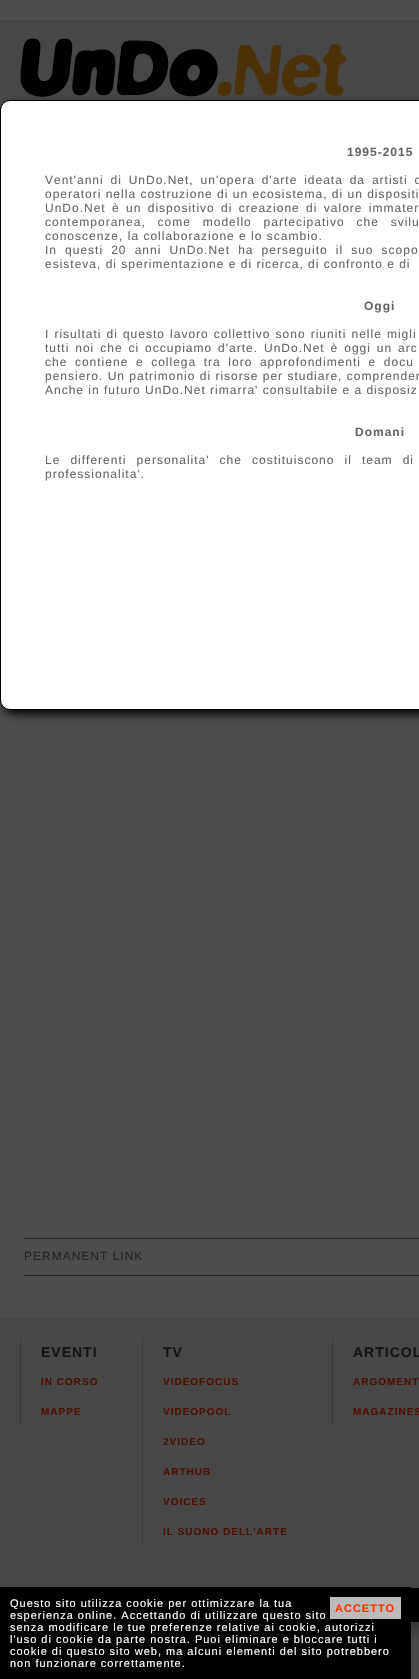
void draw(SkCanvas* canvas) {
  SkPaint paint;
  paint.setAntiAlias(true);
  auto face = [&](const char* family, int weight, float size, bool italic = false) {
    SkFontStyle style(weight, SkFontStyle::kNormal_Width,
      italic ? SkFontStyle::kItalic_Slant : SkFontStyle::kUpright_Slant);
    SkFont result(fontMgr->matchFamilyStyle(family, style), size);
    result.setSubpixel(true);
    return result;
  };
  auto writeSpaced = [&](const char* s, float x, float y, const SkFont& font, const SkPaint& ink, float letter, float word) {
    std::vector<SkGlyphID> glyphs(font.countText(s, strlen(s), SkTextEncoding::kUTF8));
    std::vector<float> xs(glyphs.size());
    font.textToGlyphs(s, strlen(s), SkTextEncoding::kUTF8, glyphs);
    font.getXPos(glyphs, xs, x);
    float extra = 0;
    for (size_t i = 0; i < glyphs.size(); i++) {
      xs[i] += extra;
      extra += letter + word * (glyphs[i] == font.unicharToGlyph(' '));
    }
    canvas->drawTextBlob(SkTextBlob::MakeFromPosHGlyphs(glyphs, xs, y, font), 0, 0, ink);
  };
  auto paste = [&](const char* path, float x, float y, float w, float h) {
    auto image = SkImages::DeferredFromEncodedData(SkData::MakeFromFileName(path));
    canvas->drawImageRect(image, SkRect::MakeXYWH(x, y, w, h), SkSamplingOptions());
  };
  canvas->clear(0xff474747);
  paint.setColor(0xff383838);
  paint.setMaskFilter(SkMaskFilter::MakeBlur(kNormal_SkBlurStyle, 5));
  canvas->drawRect(SkRect::MakeXYWH(-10, 10, 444, 1622), paint);
  paint.setMaskFilter(nullptr);
  paint.setColor(0xff4d4d4d);
  canvas->drawRect(SkRect::MakeXYWH(0, 0, 419, 1318), paint);
  paint.setColor(0xff474747);
  canvas->drawRect(SkRect::MakeXYWH(0, 20, 419, 90), paint);
  paste("img/1.png", 20, 38, 328, 59);
  paint.setColor(0xff000000);
  paint.setMaskFilter(SkMaskFilter::MakeBlur(kNormal_SkBlurStyle, 5));
  canvas->drawRoundRect(SkRect::MakeXYWH(4, 104, 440, 610), 10, 10, paint);
  paint.setMaskFilter(nullptr);
  paint.setColor(0xffffffff);
  canvas->drawRoundRect(SkRect::MakeXYWH(0.5f, 100.5f, 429, 609), 9.5f, 9.5f, paint);
  paint.setStroke(true);
  paint.setStrokeWidth(1);
  paint.setColor(0xff000000);
  canvas->drawRoundRect(SkRect::MakeXYWH(0.5f, 100.5f, 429, 609), 9.5f, 9.5f, paint);
  paint.setStroke(false);
  {
    const struct { float x, y, w, h; SkColor color; } items[] = {
      {24, 1238, 395, 1, 0xff242424},
      {24, 1275, 395, 1, 0xff242424},
      {411, 1588, 8, 34, 0xff000000},
      {0, 1318, 419, 270, 0xff474747},
      {20, 1338, 1, 88, 0xff383838},
      {142, 1338, 1, 208, 0xff383838},
      {332, 1338, 1, 88, 0xff383838},
      {0, 1587, 411, 92, 0xff000000},
      {330, 1597, 71, 22, 0xffbbbbbb},
    };
    for (auto [x, y, w, h, color] : items) {
      paint.setColor(color);
      canvas->drawRect(SkRect::MakeXYWH(x, y, w, h), paint);
    }
  }
  auto f0 = face("Liberation Sans", 700, 12);
  paint.setColor(0xff666666);
  writeSpaced("1995-2015", 347, 156, f0, paint, 1, 0);
  auto f1 = face("Liberation Sans", 400, 12);
  writeSpaced("Vent'anni di UnDo.Net, un'opera d'arte ideata da artisti c", 45, 184, f1, paint, 1, 2.5f);
  writeSpaced("operatori nella costruzione di un ecosistema, di un dispositi", 45, 198, f1, paint, 1, 0);
  writeSpaced("UnDo.Net è un dispositivo di creazione di valore immater", 45, 212, f1, paint, 1, 2);
  writeSpaced("contemporanea, come modello partecipativo che svilu", 45, 226, f1, paint, 1, 7.5f);
  writeSpaced("conoscenze, la collaborazione e lo scambio.", 45, 240, f1, paint, 1, 0);
  writeSpaced("In questi 20 anni UnDo.Net ha perseguito il suo scopo", 45, 254, f1, paint, 1, 3.75f);
  writeSpaced("esisteva, di sperimentazione e di ricerca, di confronto e di", 45, 268, f1, paint, 1, 0);
  writeSpaced("Oggi", 364, 310, f0, paint, 1, 0);
  writeSpaced("I risultati di questo lavoro collettivo sono riuniti nelle migli", 45, 338, f1, paint, 1, 0.75f);
  writeSpaced("tutti noi che ci occupiamo d'arte. UnDo.Net è oggi un arc", 45, 352, f1, paint, 1, 1.6f);
  writeSpaced("che contiene e collega tra loro approfondimenti e docu", 45, 366, f1, paint, 1, 3.25f);
  writeSpaced("pensiero. Un patrimonio di risorse per studiare, comprender", 45, 380, f1, paint, 1, 0);
  writeSpaced("Anche in futuro UnDo.Net rimarra' consultabile e a disposiz", 45, 394, f1, paint, 1, 0);
  writeSpaced("Domani", 355, 436, f0, paint, 1, 0);
  writeSpaced("Le differenti personalita' che costituiscono il team di", 45, 464, f1, paint, 1, 5.75f);
  writeSpaced("professionalita'.", 45, 478, f1, paint, 1, 0);
  paint.setColor(0xff242424);
  writeSpaced("PERMANENT LINK", 24, 1260, f1, paint, 1, 0);
  auto f2 = face("Liberation Sans", 700, 14);
  paint.setColor(0xff141414);
  writeSpaced("EVENTI", 41, 1357, f2, paint, 1, 0);
  auto f3 = face("Liberation Sans", 700, 10);
  paint.setColor(0xff4d0f00);
  writeSpaced("IN CORSO", 41, 1385, f3, paint, 1, 0);
  writeSpaced("MAPPE", 41, 1415, f3, paint, 1, 0);
  paint.setColor(0xff141414);
  writeSpaced("TV", 163, 1357, f2, paint, 1, 0);
  paint.setColor(0xff4d0f00);
  {
    const struct { const char* s; float x, y; } items[] = {
      {"VIDEOFOCUS", 163, 1385},
      {"VIDEOPOOL", 163, 1415},
      {"2VIDEO", 163, 1445},
      {"ARTHUB", 163, 1475},
      {"VOICES", 163, 1505},
      {"IL SUONO DELL'ARTE", 163, 1535},
    };
    for (auto [s, x, y] : items) {
      writeSpaced(s, x, y, f3, paint, 1, 0);
    }
  }
  paint.setColor(0xff141414);
  writeSpaced("ARTICOL", 353, 1357, f2, paint, 1, 0);
  paint.setColor(0xff4d0f00);
  writeSpaced("ARGOMENT", 353, 1385, f3, paint, 1, 0);
  writeSpaced("MAGAZINES", 353, 1415, f3, paint, 1, 0);
  auto f4 = face("Liberation Sans", 400, 11);
  paint.setColor(0xffffffff);
  {
    const struct { const char* s; float x, y; } items[] = {
      {"Questo sito utilizza cookie per ottimizzare la tua", 10, 1607},
      {"esperienza online. Accettando di utilizzare questo sito", 10, 1619},
      {"senza modificare le tue preferenze relative ai cookie, autorizzi", 10, 1631},
      {"l'uso di cookie da parte nostra. Puoi eliminare e bloccare tutti i", 10, 1643},
      {"cookie di questo sito web, ma alcuni elementi del sito potrebbero", 10, 1655},
      {"non funzionare correttamente.", 10, 1667},
    };
    for (auto [s, x, y] : items) {
      writeSpaced(s, x, y, f4, paint, 1, 0);
    }
  }
  auto f5 = face("Liberation Sans", 700, 11);
  paint.setColor(0xffff3300);
  writeSpaced("ACCETTO", 335, 1612, f5, paint, 1, 0);
}
